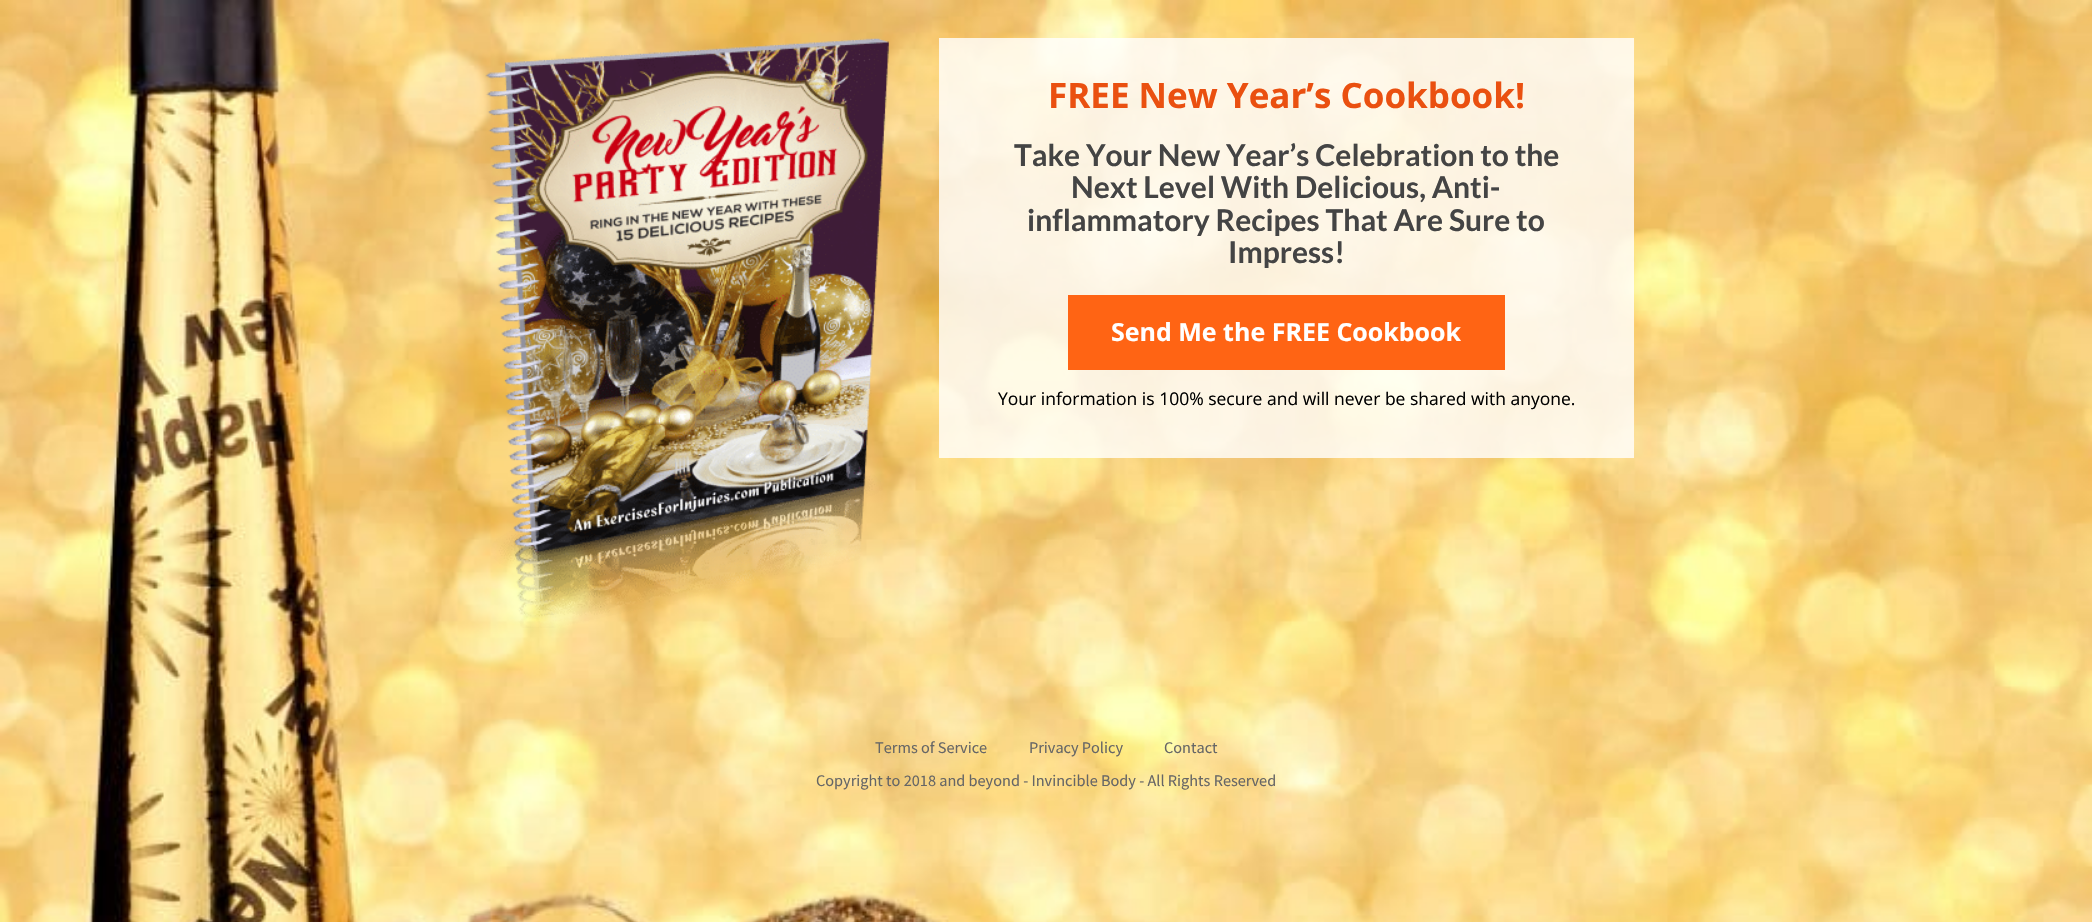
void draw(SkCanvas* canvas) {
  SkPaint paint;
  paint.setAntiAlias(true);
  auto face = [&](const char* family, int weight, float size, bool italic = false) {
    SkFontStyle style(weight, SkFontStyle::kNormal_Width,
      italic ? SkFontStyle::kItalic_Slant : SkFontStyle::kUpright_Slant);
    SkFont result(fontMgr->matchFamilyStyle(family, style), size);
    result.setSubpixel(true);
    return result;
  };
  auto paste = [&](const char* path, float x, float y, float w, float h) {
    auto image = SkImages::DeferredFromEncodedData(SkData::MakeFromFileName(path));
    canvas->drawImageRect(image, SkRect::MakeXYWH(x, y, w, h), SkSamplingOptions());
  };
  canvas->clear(0xffffffff);
  paste("img/1.png", 0, 0, 2092, 922);
  paste("img/2.png", 485, 38, 404, 590);
  paint.setColor(0xccffffff);
  canvas->drawRect(SkRect::MakeXYWH(939, 38, 695, 420), paint);
  paint.setColor(0xffff6414);
  canvas->drawRect(SkRect::MakeXYWH(1068, 295, 437, 75), paint);
  auto f0 = face("Open Sans", 700, 35);
  paint.setColor(0xffea5010);
  canvas->drawString("FREE New Year’s Cookbook!", 1048, 108, f0, paint);
  auto f1 = face("Lato", 700, 30);
  paint.setColor(0xff444444);
  {
    const struct { const char* s; float x, y; } items[] = {
      {"Take Your New Year’s Celebration to the", 1014, 166},
      {"Next Level With Delicious, Anti-", 1071, 198},
      {"inflammatory Recipes That Are Sure to", 1027, 231},
      {"Impress!", 1228, 263},
    };
    for (auto [s, x, y] : items) {
      canvas->drawString(s, x, y, f1, paint);
    }
  }
  auto f2 = face("Open Sans", 700, 25);
  paint.setColor(0xffffffff);
  canvas->drawString("Send Me the FREE Cookbook", 1111, 341, f2, paint);
  auto f3 = face("Open Sans", 400, 17.5f);
  paint.setColor(0xff000000);
  canvas->drawString("Your information is 100% secure and will never be shared with anyone.", 998, 405, f3, paint);
  auto f4 = face("Source Sans Pro", 400, 16.25f);
  paint.setColor(0xff666666);
  {
    const struct { const char* s; float x, y; } items[] = {
      {"Terms of Service", 875, 753},
      {"Privacy Policy", 1029, 753},
      {"Contact", 1164, 753},
      {"Copyright to 2018 and beyond - Invincible Body - All Rights Reserved", 816, 786},
    };
    for (auto [s, x, y] : items) {
      canvas->drawString(s, x, y, f4, paint);
    }
  }
}
